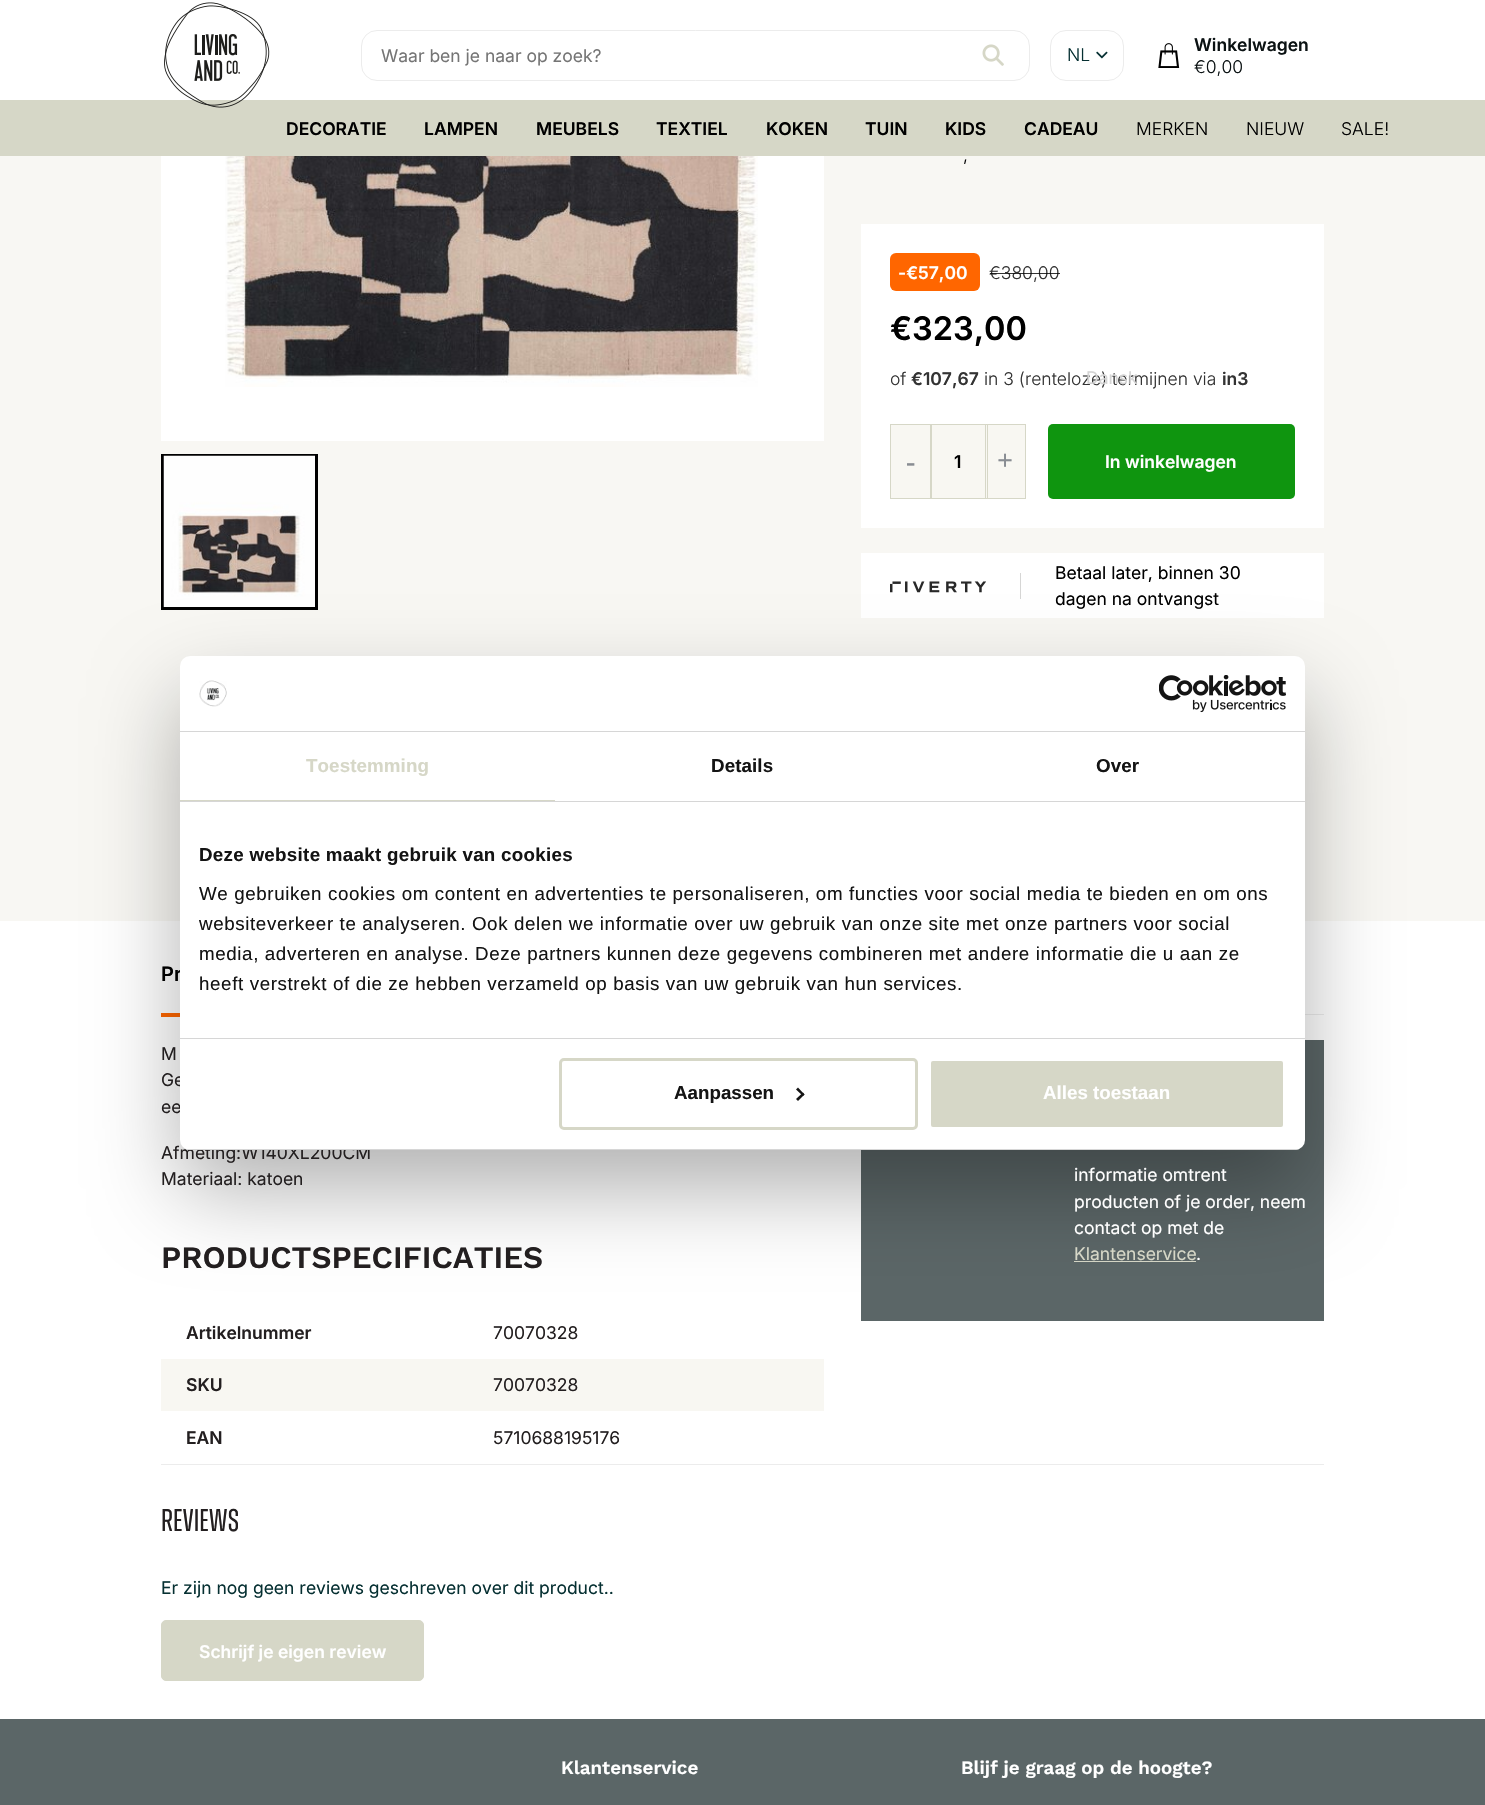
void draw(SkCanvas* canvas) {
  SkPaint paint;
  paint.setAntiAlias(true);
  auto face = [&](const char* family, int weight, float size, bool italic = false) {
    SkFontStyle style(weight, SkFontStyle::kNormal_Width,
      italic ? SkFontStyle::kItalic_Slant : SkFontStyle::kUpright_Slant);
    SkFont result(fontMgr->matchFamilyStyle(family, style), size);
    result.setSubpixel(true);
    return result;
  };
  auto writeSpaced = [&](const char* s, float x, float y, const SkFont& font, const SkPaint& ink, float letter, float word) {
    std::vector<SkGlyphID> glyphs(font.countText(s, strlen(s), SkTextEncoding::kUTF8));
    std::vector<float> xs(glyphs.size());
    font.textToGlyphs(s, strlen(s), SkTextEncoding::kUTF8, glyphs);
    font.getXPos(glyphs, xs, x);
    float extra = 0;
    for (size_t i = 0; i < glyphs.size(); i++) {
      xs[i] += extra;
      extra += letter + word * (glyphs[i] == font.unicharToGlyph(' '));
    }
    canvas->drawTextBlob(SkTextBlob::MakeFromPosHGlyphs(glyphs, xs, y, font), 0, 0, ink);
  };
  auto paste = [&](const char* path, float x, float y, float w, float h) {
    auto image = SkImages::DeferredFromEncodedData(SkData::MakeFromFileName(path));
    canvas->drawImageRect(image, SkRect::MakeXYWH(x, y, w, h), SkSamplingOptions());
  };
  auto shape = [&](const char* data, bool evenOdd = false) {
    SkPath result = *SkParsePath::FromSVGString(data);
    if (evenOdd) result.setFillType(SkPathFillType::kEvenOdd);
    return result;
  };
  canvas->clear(0xffffffff);
  paint.setColor(0xffd6d7c7);
  canvas->drawRect(SkRect::MakeXYWH(0, 100, 1485, 56), paint);
  paste("img/1.png", 164, 2, 106, 106);
  paint.setStroke(true);
  paint.setStrokeWidth(1);
  paint.setColor(0xffececec);
  canvas->drawRoundRect(SkRect::MakeXYWH(361.5f, 30.5f, 668, 50), 15.5f, 15.5f, paint);
  paste("img/2.png", 982, 44, 22, 22);
  canvas->drawRoundRect(SkRect::MakeXYWH(1050.5f, 30.5f, 73, 50), 15.5f, 15.5f, paint);
  paste("img/3.png", 1096, 51, 12, 8);
  paste("img/4.png", 1158, 43, 22, 25);
  paint.setStroke(false);
  paint.setColor(0xfff8f7f3);
  canvas->drawRect(SkRect::MakeXYWH(0, 156, 1485, 765), paint);
  paint.setColor(0xffffffff);
  canvas->drawRect(SkRect::MakeXYWH(161, 156, 663, 285), paint);
  paste("img/5.png", 225, 156, 533, 231);
  paint.setStroke(true);
  paint.setStrokeWidth(3);
  paint.setColor(0xff000000);
  canvas->drawRect(SkRect::MakeXYWH(162.5f, 455.5f, 154, 153), paint);
  paste("img/6.png", 163, 455, 152, 152);
  paint.setStroke(false);
  paint.setColor(0xffffffff);
  canvas->drawRect(SkRect::MakeXYWH(861, 224, 463, 304), paint);
  paint.setColor(0xffff6600);
  canvas->drawRoundRect(SkRect::MakeXYWH(890, 253, 90, 38), 6, 6, paint);
  paint.setColor(0xfff8f7f2);
  canvas->drawRect(SkRect::MakeXYWH(891, 425, 134, 73), paint);
  paint.setStroke(true);
  paint.setStrokeWidth(1);
  paint.setColor(0xffd6d7c7);
  canvas->drawRect(SkRect::MakeXYWH(890.5f, 424.5f, 40, 74), paint);
  canvas->drawRect(SkRect::MakeXYWH(931.5f, 424.5f, 56, 74), paint);
  canvas->drawRect(SkRect::MakeXYWH(985.5f, 424.5f, 40, 74), paint);
  paint.setStroke(false);
  paint.setColor(0xff0f950f);
  canvas->drawRoundRect(SkRect::MakeXYWH(1048, 424, 247, 75), 5, 5, paint);
  paint.setColor(0xffffffff);
  canvas->drawRect(SkRect::MakeXYWH(861, 553, 463, 65), paint);
  paint.setColor(0xffd6d6d5);
  canvas->drawRect(SkRect::MakeXYWH(1020, 573, 1, 26), paint);
  paste("img/7.png", 890, 581, 96, 12);
  {
    const struct { float x, y, w, h; SkColor color; } items[] = {
      {1305, 1014, 19, 1, 0xffececec},
      {161, 1013, 19, 4, 0xffff6600},
      {161, 1359, 663, 52, 0xfff8f7f2},
      {861, 1040, 463, 281, 0xff5b6667},
      {1074, 1261, 122, 1, 0xffd6d7c7},
      {161, 1464, 1163, 1, 0xffececec},
    };
    for (auto [x, y, w, h, color] : items) {
      paint.setColor(color);
      canvas->drawRect(SkRect::MakeXYWH(x, y, w, h), paint);
    }
  }
  paint.setColor(0xffd6d7c7);
  canvas->drawRoundRect(SkRect::MakeXYWH(161.5f, 1620.5f, 262, 60), 4.5f, 4.5f, paint);
  paint.setStroke(true);
  canvas->drawRoundRect(SkRect::MakeXYWH(161.5f, 1620.5f, 262, 60), 4.5f, 4.5f, paint);
  paint.setStroke(false);
  paint.setColor(0x4d000000);
  paint.setMaskFilter(SkMaskFilter::MakeBlur(kNormal_SkBlurStyle, 42.5f));
  canvas->drawRoundRect(SkRect::MakeXYWH(180, 696, 1125, 494), 10, 10, paint);
  paint.setMaskFilter(nullptr);
  paint.setColor(0xff5b6667);
  canvas->drawRect(SkRect::MakeXYWH(0, 1719, 1485, 86), paint);
  auto f0 = face("Inter", 400, 17.5f);
  paint.setColor(0xff757575);
  canvas->drawString("Waar ben je naar op zoek?", 381, 62, f0, paint);
  auto f1 = face("Inter", 300, 17.5f);
  paint.setColor(0xff063032);
  canvas->drawString("NL", 1067, 61, f1, paint);
  auto f2 = face("Inter", 600, 17.5f);
  paint.setColor(0xff0b1213);
  canvas->drawString("Winkelwagen", 1194, 51, f2, paint);
  canvas->drawString("€0,00", 1194, 73, f1, paint);
  paint.setColor(0xff000000);
  {
    const struct { const char* s; float x, y; } items[] = {
      {"DECORATIE", 286, 135},
      {"LAMPEN", 424, 135},
      {"MEUBELS", 536, 135},
      {"TEXTIEL", 656, 135},
      {"KOKEN", 766, 135},
      {"TUIN", 865, 135},
      {"KIDS", 945, 135},
      {"CADEAU", 1024, 135},
    };
    for (auto [s, x, y] : items) {
      canvas->drawString(s, x, y, f2, paint);
    }
  }
  {
    const struct { const char* s; float x, y; } items[] = {
      {"MERKEN", 1136, 135},
      {"NIEUW", 1246, 135},
      {"SALE!", 1341, 135},
      {",", 963, 161},
    };
    for (auto [s, x, y] : items) {
      canvas->drawString(s, x, y, f1, paint);
    }
  }
  paint.setColor(0xffffffff);
  canvas->drawString("-€57,00", 898, 279, f2, paint);
  paint.setColor(0xff333333);
  canvas->drawString("€380,00", 989, 279, f1, paint);
  paint.setColor(0xcc000000);
  canvas->drawRect(SkRect::MakeXYWH(990, 273, 70, 1), paint);
  auto f3 = face("Inter", 600, 32.5f);
  paint.setColor(0xff000000);
  canvas->drawString("€323,00", 890, 340, f3, paint);
  paint.setColor(0xff333333);
  canvas->drawString("of", 890, 385, f1, paint);
  canvas->drawString("€107,67", 911, 385, f2, paint);
  canvas->drawString("in 3 (renteloze) termijnen via", 984, 385, f1, paint);
  paint.setColor(0xffd4d4d4);
  canvas->drawString("Dansk", 1086, 384, f0, paint);
  paint.setColor(0xff333333);
  canvas->drawString("in3", 1222, 385, f2, paint);
  auto f4 = face("Liberation Serif", 700, 28);
  paint.setColor(0xff898d93);
  canvas->drawString("-", 906, 471, f4, paint);
  paint.setColor(0xff000000);
  canvas->drawString("1", 954, 468, f2, paint);
  paint.setColor(0xff898d93);
  canvas->save();
  canvas->rotate(180, 1013, 451);
  canvas->drawString("+", 1013, 451, f4, paint);
  canvas->restore();
  paint.setColor(0xffffffff);
  canvas->drawString("In winkelwagen", 1105, 468, f2, paint);
  paint.setColor(0xff000000);
  canvas->drawString("Betaal later, binnen 30", 1055, 579, f0, paint);
  canvas->drawString("dagen na ontvangst", 1055, 605, f0, paint);
  auto f5 = face("Inter", 600, 20);
  canvas->drawString("Pr", 161, 981, f5, paint);
  paint.setColor(0xff231f20);
  {
    const struct { const char* s; float x, y; } items[] = {
      {"M", 161, 1060},
      {"Ge", 161, 1086},
      {"ee", 161, 1113},
      {"Afmeting:W140XL200CM", 161, 1159},
      {"Materiaal: katoen", 161, 1185},
    };
    for (auto [s, x, y] : items) {
      canvas->drawString(s, x, y, f0, paint);
    }
  }
  auto f6 = face("Work Sans", 600, 31.25f);
  canvas->drawString("PRODUCTSPECIFICATIES", 161, 1268, f6, paint);
  canvas->drawString("Artikelnummer", 186, 1339, f2, paint);
  canvas->drawString("70070328", 493, 1339, f0, paint);
  canvas->drawString("SKU", 186, 1391, f2, paint);
  canvas->drawString("70070328", 493, 1391, f0, paint);
  canvas->drawString("EAN", 186, 1444, f2, paint);
  canvas->drawString("5710688195176", 493, 1444, f0, paint);
  paint.setColor(0xffffffff);
  {
    const struct { const char* s; float x, y; } items[] = {
      {"informatie omtrent", 1074, 1181},
      {"producten of je order, neem", 1074, 1208},
      {"contact op met de", 1074, 1234},
    };
    for (auto [s, x, y] : items) {
      canvas->drawString(s, x, y, f0, paint);
    }
  }
  paint.setColor(0xffd6d7c7);
  canvas->drawString("Klantenservice", 1074, 1260, f0, paint);
  paint.setColor(0xffffffff);
  canvas->drawString(".", 1196, 1260, f0, paint);
  auto f7 = face("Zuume", 400, 31.25f);
  paint.setColor(0xff231f20);
  canvas->drawString("Reviews", 161, 1531, f7, paint);
  paint.setColor(0xff063032);
  canvas->drawString("Er zijn nog geen reviews geschreven over dit product..", 161, 1594, f0, paint);
  paint.setColor(0xffffffff);
  canvas->drawString("Schrijf je eigen review", 199, 1658, f2, paint);
  canvas->drawRoundRect(SkRect::MakeXYWH(180, 656, 1125, 494), 10, 10, paint);
  paint.setColor(0xffd6d6d6);
  canvas->drawRect(SkRect::MakeXYWH(180, 731, 1125, 1), paint);
  paste("img/8.png", 199, 680, 28, 27);
  paste("img/9.png", 1159, 675, 127, 38);
  canvas->drawRect(SkRect::MakeXYWH(180, 801, 1125, 1), paint);
  paint.setColor(0xffd6d7c7);
  canvas->drawRect(SkRect::MakeXYWH(180, 800, 375, 1), paint);
  auto f8 = face("Liberation Sans", 700, 18.75f);
  writeSpaced("Toestemming", 306, 772, f8, paint, 0.1f, 0);
  paint.setColor(0xff141414);
  writeSpaced("Details", 711, 772, f8, paint, 0.1f, 0);
  writeSpaced("Over", 1096, 772, f8, paint, 0.1f, 0);
  paint.setColor(0xffd6d6d6);
  canvas->drawRect(SkRect::MakeXYWH(180, 1038, 1125, 1), paint);
  paint.setColor(0xff141414);
  writeSpaced("Deze website maakt gebruik van cookies", 199, 861, f8, paint, 0.3f, 0);
  auto f9 = face("Liberation Sans", 400, 18.75f);
  {
    const struct { const char* s; float x, y; } items[] = {
      {"We gebruiken cookies om content en advertenties te personaliseren, om functies voor social media te bieden en om ons", 199, 900},
      {"websiteverkeer te analyseren. Ook delen we informatie over uw gebruik van onze site met onze partners voor social", 199, 930},
      {"media, adverteren en analyse. Deze partners kunnen deze gegevens combineren met andere informatie die u aan ze", 199, 960},
      {"heeft verstrekt of die ze hebben verzameld op basis van uw gebruik van hun services.", 199, 990},
    };
    for (auto [s, x, y] : items) {
      writeSpaced(s, x, y, f9, paint, 0.62f, 0);
    }
  }
  canvas->save();
  canvas->clipPath(shape("M190 656H1295C1300.5 656 1305 660.5 1305 666V1140C1305 1145.5 1300.5 1150 1295 1150H190C184.5 1150 180 1145.5 180 1140V666C180 660.5 184.5 656 190 656Z"), true);
  paint.setColor(0xffd6d6d6);
  canvas->drawRect(SkRect::MakeXYWH(180, 1149, 1125, 1), paint);
  canvas->restore();
  paint.setStroke(true);
  paint.setStrokeWidth(3);
  paint.setColor(0xffd6d7c7);
  canvas->drawRoundRect(SkRect::MakeXYWH(560.5f, 1059.5f, 356, 69), 3.5f, 3.5f, paint);
  paint.setStroke(false);
  paint.setColor(0xff141414);
  canvas->drawString("Aanpassen", 674, 1099, f8, paint);
  canvas->drawPath(shape("M798 1087.5L804.5 1094.5L803 1096L796 1089.5Z"), paint);
  canvas->drawPath(shape("M803 1092.5L804.5 1094.5L798 1101L796 1099Z"), paint);
  paint.setColor(0xffd6d7c7);
  canvas->drawRoundRect(SkRect::MakeXYWH(929.5f, 1059.5f, 355, 69), 3.5f, 3.5f, paint);
  paint.setStroke(true);
  paint.setColor(0xffffffff);
  canvas->drawRoundRect(SkRect::MakeXYWH(929.5f, 1059.5f, 355, 69), 3.5f, 3.5f, paint);
  paint.setStroke(false);
  canvas->drawString("Alles toestaan", 1043, 1099, f8, paint);
  auto f10 = face("Work Sans", 600, 18.75f);
  canvas->drawString("Klantenservice", 561, 1774, f10, paint);
  canvas->drawString("Blijf je graag op de hoogte?", 961, 1774, f10, paint);
}
